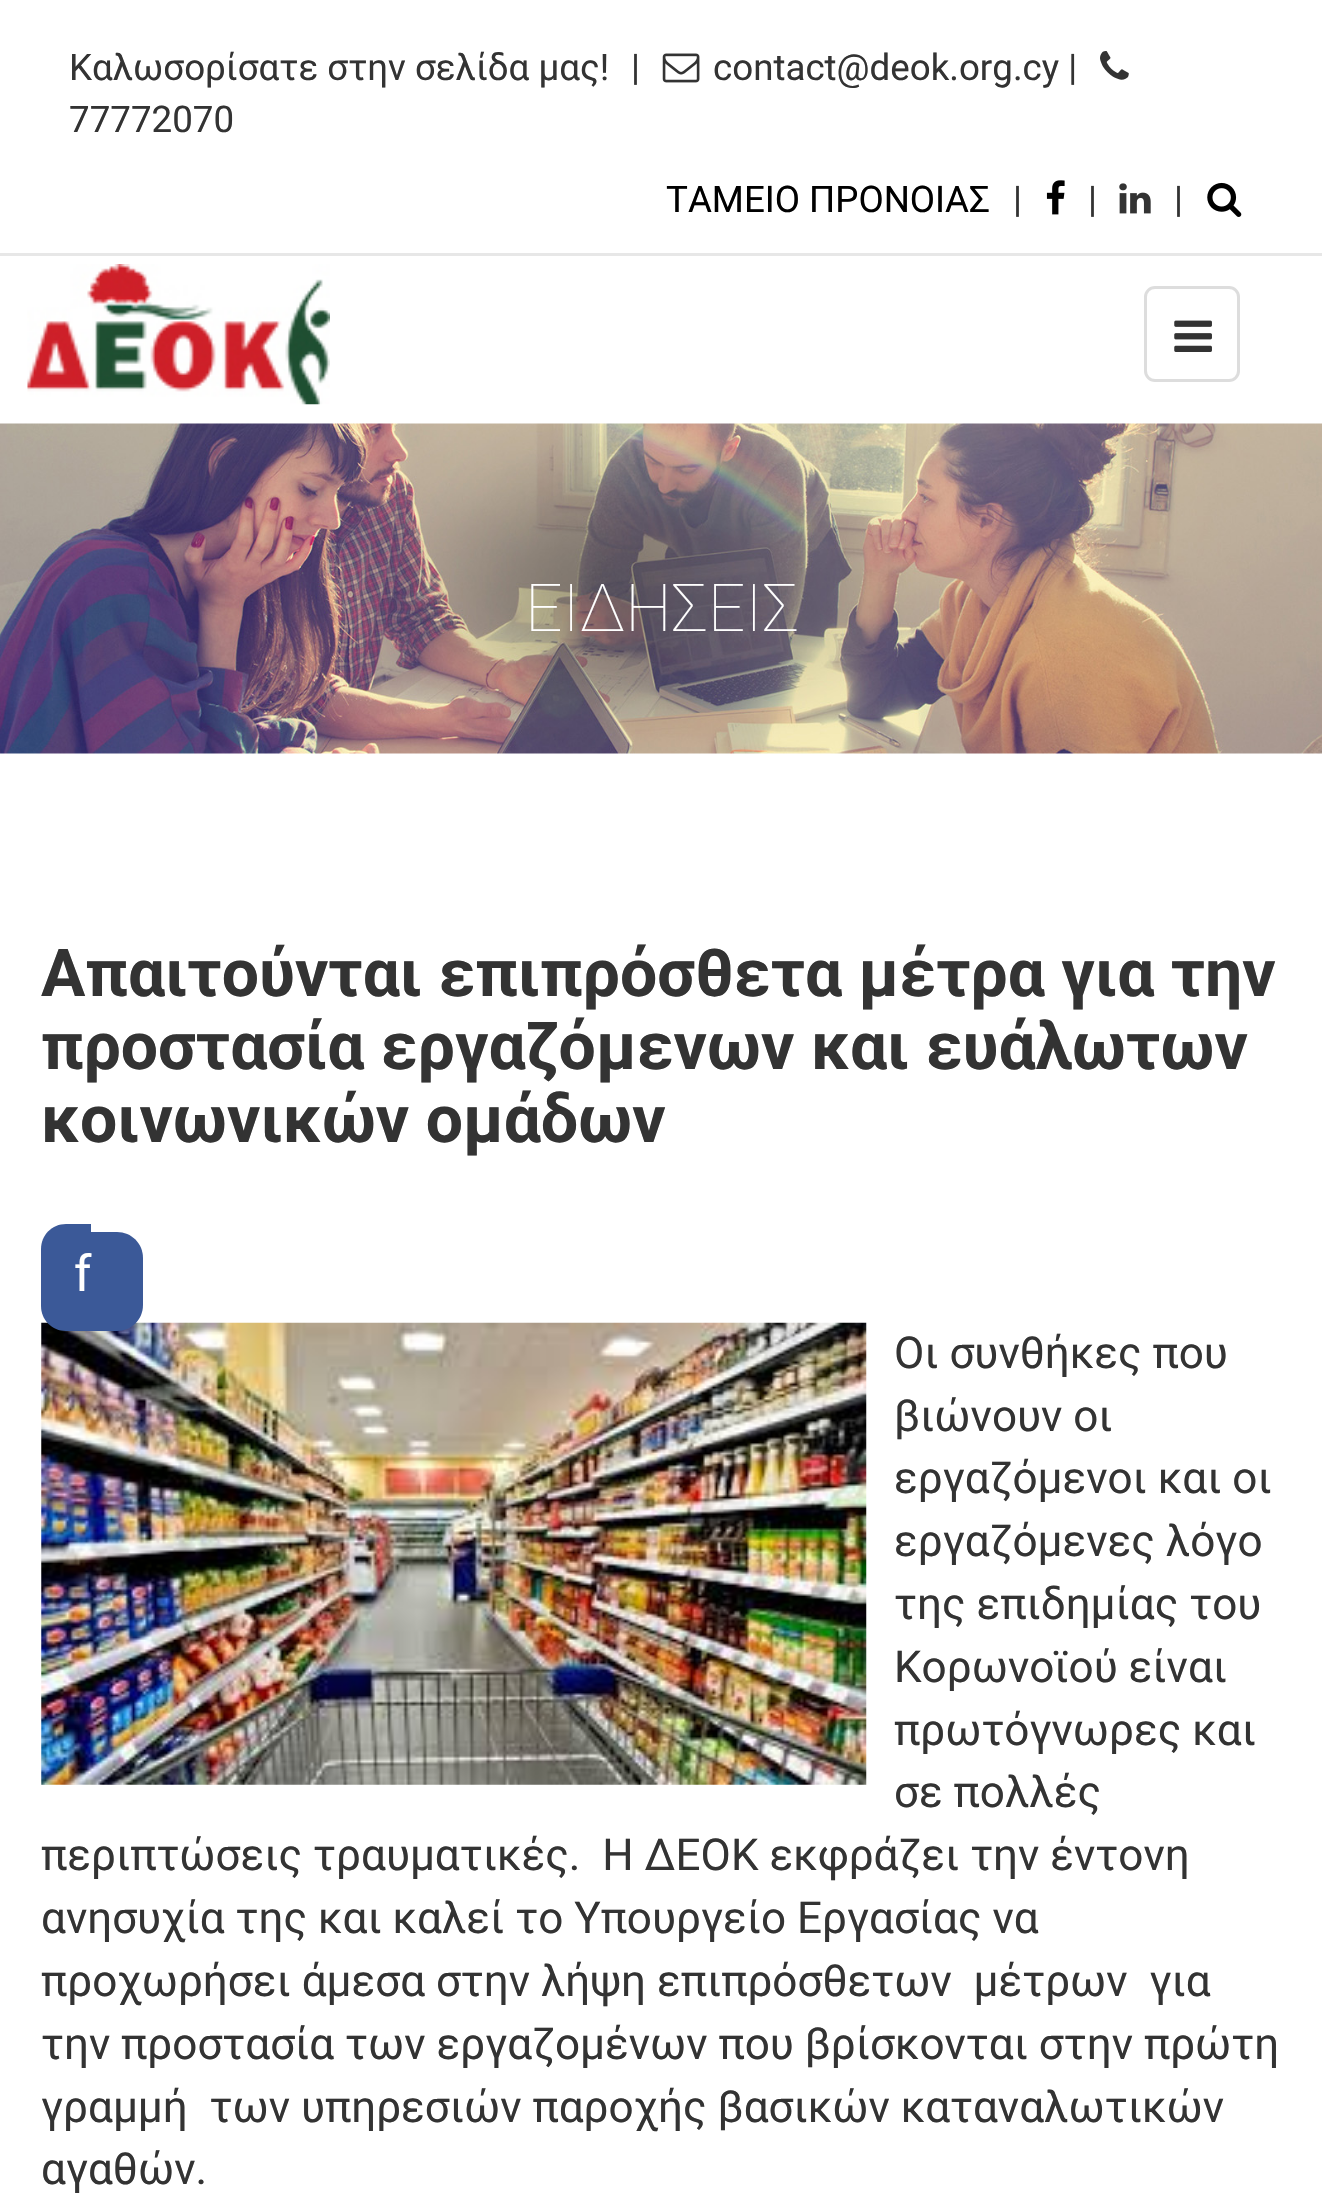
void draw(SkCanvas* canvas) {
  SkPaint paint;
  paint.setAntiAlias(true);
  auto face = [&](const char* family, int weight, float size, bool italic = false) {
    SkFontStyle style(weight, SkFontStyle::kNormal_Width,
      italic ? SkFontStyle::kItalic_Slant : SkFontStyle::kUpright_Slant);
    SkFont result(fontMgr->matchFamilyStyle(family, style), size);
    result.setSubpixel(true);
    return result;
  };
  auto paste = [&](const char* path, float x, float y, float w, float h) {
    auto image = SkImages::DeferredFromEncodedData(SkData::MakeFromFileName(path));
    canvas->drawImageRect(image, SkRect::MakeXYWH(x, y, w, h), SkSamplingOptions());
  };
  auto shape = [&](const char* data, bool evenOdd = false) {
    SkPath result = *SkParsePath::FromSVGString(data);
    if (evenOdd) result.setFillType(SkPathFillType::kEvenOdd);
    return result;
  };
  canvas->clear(0xffffffff);
  paste("img/1.png", 662, 53, 38, 30);
  paste("img/2.png", 1100, 51, 29, 29);
  paste("img/3.png", 1046, 180, 19, 35);
  paste("img/4.png", 1119, 183, 32, 31);
  paste("img/5.png", 1207, 182, 35, 35);
  paint.setColor(0xffe7e7e7);
  canvas->drawRect(SkRect::MakeXYWH(0, 253, 1322, 3), paint);
  paste("img/6.png", 27, 264, 303, 141);
  paint.setStroke(true);
  paint.setStrokeWidth(3);
  paint.setColor(0xffdddddd);
  canvas->drawRoundRect(SkRect::MakeXYWH(1145.5f, 287.5f, 93, 93), 9.5f, 9.5f, paint);
  paste("img/7.png", 1174, 320, 38, 32);
  paste("img/8.png", 0, 423, 1322, 331);
  paste("img/9.png", 41, 1322, 826, 463);
  paint.setStroke(false);
  paint.setColor(0xff3b5998);
  canvas->drawPath(shape("M66 1224H91V1331H66C52 1331 41 1320 41 1306V1249C41 1235 52 1224 66 1224Z"), paint);
  canvas->drawPath(shape("M91 1232H117C131.5 1232 143 1243.5 143 1258V1305C143 1319.5 131.5 1331 117 1331H91Z"), paint);
  auto f0 = face("Roboto", 400, 36.7f);
  paint.setColor(0xff333333);
  {
    const struct { const char* s; float x, y; } items[] = {
      {"Καλωσορίσατε στην σελίδα μας!", 69, 80},
      {"|", 631, 80},
      {"contact@deok.org.cy |", 713, 80},
      {"77772070", 69, 132},
    };
    for (auto [s, x, y] : items) {
      canvas->drawString(s, x, y, f0, paint);
    }
  }
  paint.setColor(0xff000000);
  canvas->drawString("ΤΑΜΕΙΟ ΠΡΟΝΟΙΑΣ", 666, 212, f0, paint);
  paint.setColor(0xff333333);
  {
    const struct { const char* s; float x, y; } items[] = {
      {"|", 1013, 212},
      {"|", 1088, 212},
      {"|", 1174, 212},
    };
    for (auto [s, x, y] : items) {
      canvas->drawString(s, x, y, f0, paint);
    }
  }
  auto f1 = face("Roboto", 100, 66);
  paint.setColor(0xffffffff);
  canvas->drawString("ΕΙΔΗΣΕΙΣ", 525, 631, f1, paint);
  auto f2 = face("Roboto", 700, 66);
  paint.setColor(0xff333333);
  {
    const struct { const char* s; float x, y; } items[] = {
      {"Απαιτούνται επιπρόσθετα μέτρα για την", 41, 996},
      {"προστασία εργαζόμενων και ευάλωτων", 41, 1069},
      {"κοινωνικών ομάδων", 41, 1142},
    };
    for (auto [s, x, y] : items) {
      canvas->drawString(s, x, y, f2, paint);
    }
  }
  auto f3 = face("Roboto", 400, 50);
  paint.setColor(0xffffffff);
  canvas->drawString("f", 74, 1291, f3, paint);
  auto f4 = face("Roboto", 400, 44);
  paint.setColor(0xff333333);
  {
    const struct { const char* s; float x, y; } items[] = {
      {"Οι συνθήκες που", 894, 1368},
      {"βιώνουν οι", 894, 1431},
      {"εργαζόμενοι και οι", 894, 1493},
      {"εργαζόμενες λόγο", 894, 1556},
      {"της επιδημίας του", 894, 1619},
      {"Κορωνοϊού είναι", 894, 1682},
      {"πρωτόγνωρες και", 894, 1745},
      {"σε πολλές", 894, 1807},
      {"περιπτώσεις τραυματικές.  Η ΔΕΟΚ εκφράζει την έντονη", 41, 1870},
      {"ανησυχία της και καλεί το Υπουργείο Εργασίας να", 41, 1933},
      {"προχωρήσει άμεσα στην λήψη επιπρόσθετων  μέτρων  για", 41, 1996},
      {"την προστασία των εργαζομένων που βρίσκονται στην πρώτη", 41, 2059},
      {"γραμμή  των υπηρεσιών παροχής βασικών καταναλωτικών", 41, 2122},
      {"αγαθών.", 41, 2184},
    };
    for (auto [s, x, y] : items) {
      canvas->drawString(s, x, y, f4, paint);
    }
  }
}
